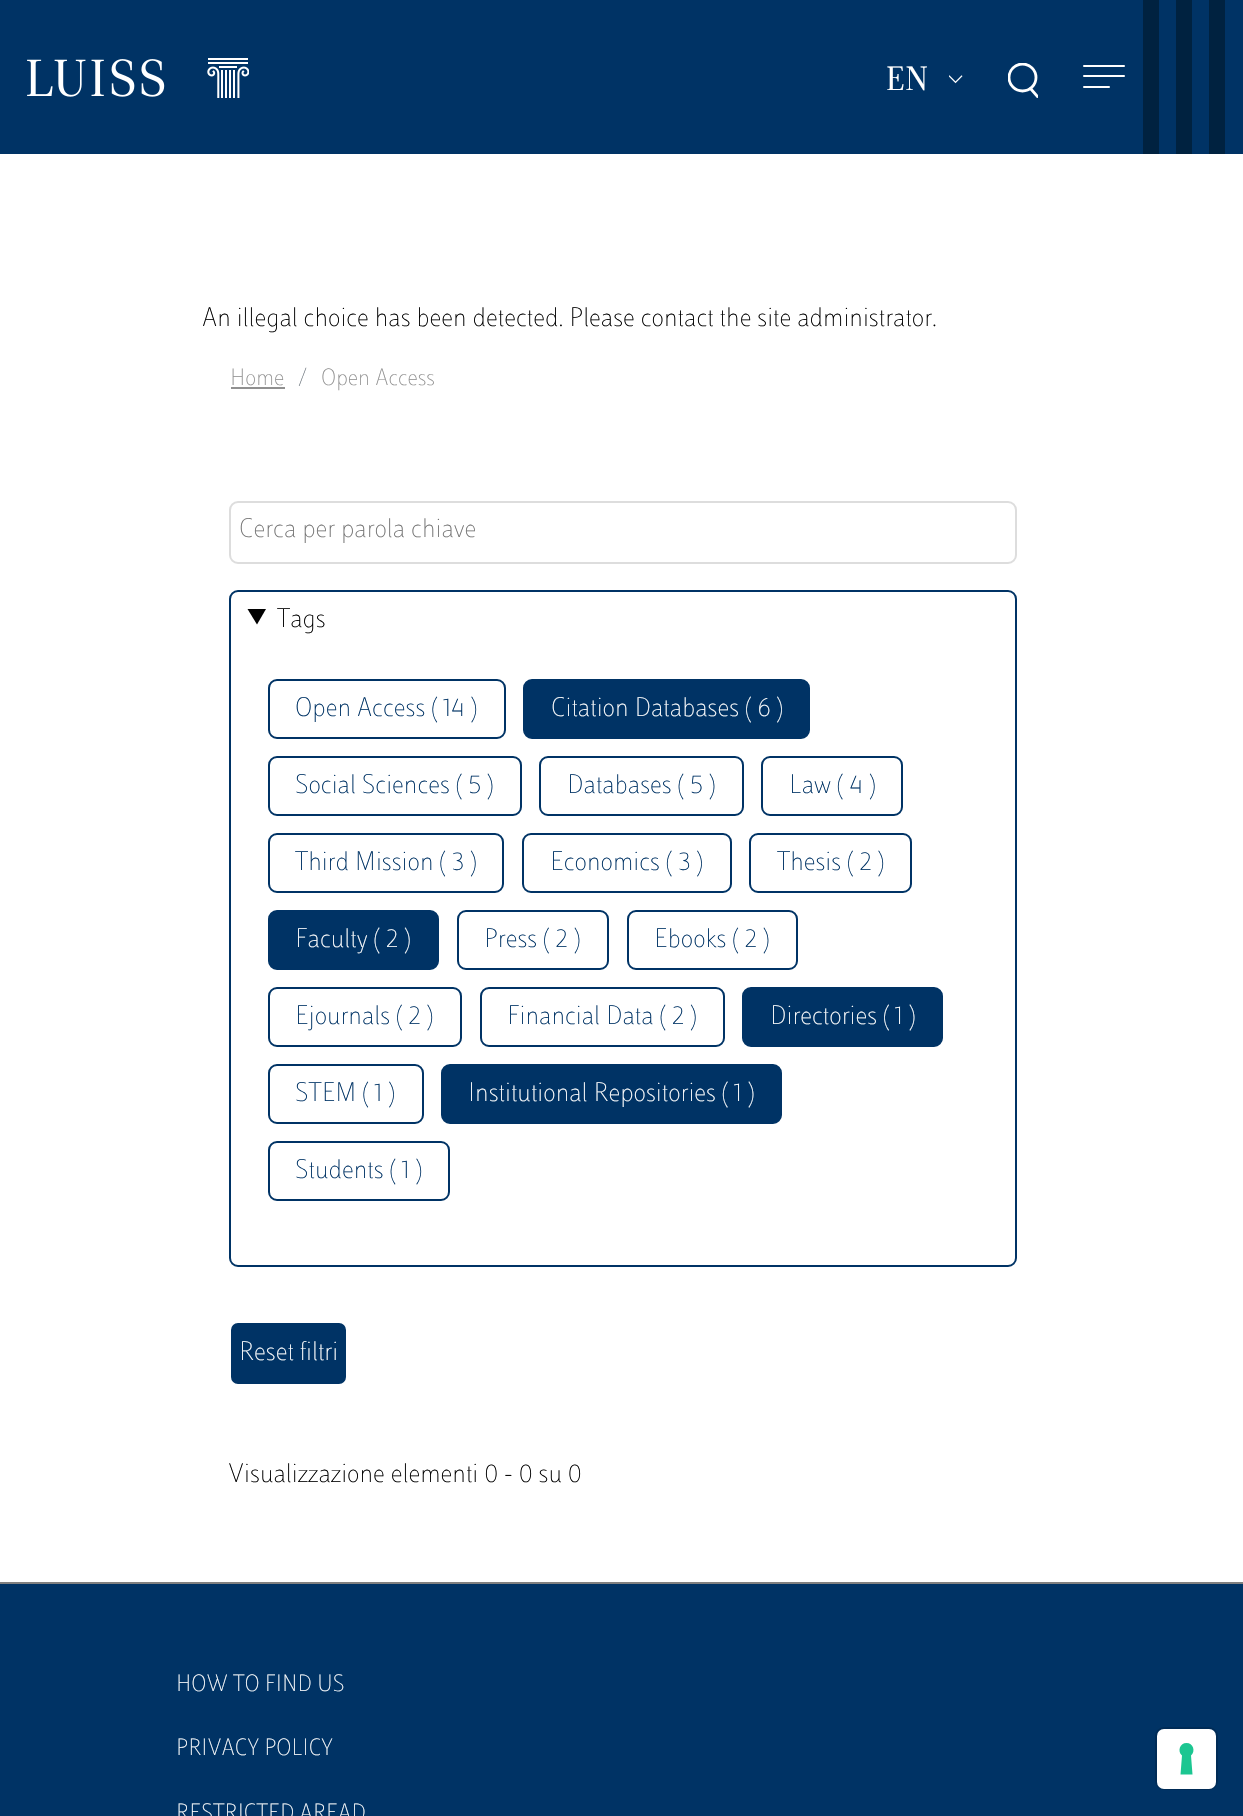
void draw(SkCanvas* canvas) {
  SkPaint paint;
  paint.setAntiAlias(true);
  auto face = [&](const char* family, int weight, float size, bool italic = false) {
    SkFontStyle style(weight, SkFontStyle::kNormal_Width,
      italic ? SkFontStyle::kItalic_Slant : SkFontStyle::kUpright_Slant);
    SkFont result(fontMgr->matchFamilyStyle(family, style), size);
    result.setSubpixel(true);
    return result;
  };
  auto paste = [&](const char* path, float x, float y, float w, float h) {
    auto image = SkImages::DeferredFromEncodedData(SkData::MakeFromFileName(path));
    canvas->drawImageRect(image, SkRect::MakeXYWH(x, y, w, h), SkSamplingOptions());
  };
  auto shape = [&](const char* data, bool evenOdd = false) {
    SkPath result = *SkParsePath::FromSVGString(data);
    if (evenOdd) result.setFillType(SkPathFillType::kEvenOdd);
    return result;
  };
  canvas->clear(0xffffffff);
  paint.setColor(0xff003365);
  canvas->drawRect(SkRect::MakeXYWH(0, 0, 1243, 154), paint);
  paste("img/1.png", 27, 58, 222, 40);
  paste("img/2.png", 949, 75, 14, 9);
  canvas->save();
  canvas->clipRect(SkRect::MakeXYWH(1008, 63, 30, 35));
  paint.setStroke(true);
  paint.setStrokeWidth(2.8f);
  paint.setColor(0xffffffff);
  canvas->drawCircle(1022.5f, 77.5f, 13.5f, paint);
  paint.setStrokeCap(SkPaint::kRound_Cap);
  paint.setStrokeJoin(SkPaint::kRound_Join);
  canvas->drawPath(shape("M1037.5 96.5L1030.5 88.5"), paint);
  canvas->restore();
  paint.setStroke(false);
  canvas->drawRoundRect(SkRect::MakeXYWH(1083, 65, 42, 2), 1, 1, paint);
  canvas->drawRoundRect(SkRect::MakeXYWH(1083, 75, 42, 2), 1, 1, paint);
  canvas->drawRoundRect(SkRect::MakeXYWH(1083, 86, 27, 2), 1, 1, paint);
  {
    const struct { float x, y, w, h; SkColor color; } items[] = {
      {1143, 0, 16, 154, 0xff002240},
      {1176, 0, 16, 154, 0xff002240},
      {1209, 0, 16, 154, 0xff002240},
      {231, 387, 54, 2, 0xff909090},
    };
    for (auto [x, y, w, h, color] : items) {
      paint.setColor(color);
      canvas->drawRect(SkRect::MakeXYWH(x, y, w, h), paint);
    }
  }
  paint.setStroke(true);
  paint.setStrokeWidth(2);
  paint.setStrokeCap(SkPaint::kButt_Cap);
  paint.setStrokeJoin(SkPaint::kMiter_Join);
  paint.setColor(0xffdddddd);
  canvas->drawRoundRect(SkRect::MakeXYWH(230, 502, 786, 61), 8, 8, paint);
  paint.setColor(0xff003365);
  canvas->drawRoundRect(SkRect::MakeXYWH(230, 591, 786, 675), 8, 8, paint);
  paint.setStroke(false);
  paint.setColor(0xff010101);
  canvas->drawPath(shape("M247.5 609H266L257 624.5Z"), paint);
  paint.setStroke(true);
  paint.setColor(0xff003365);
  canvas->drawRoundRect(SkRect::MakeXYWH(269, 680, 236, 58), 8, 8, paint);
  paint.setStroke(false);
  canvas->drawRoundRect(SkRect::MakeXYWH(524, 680, 285, 58), 8, 8, paint);
  paint.setStroke(true);
  canvas->drawRoundRect(SkRect::MakeXYWH(524, 680, 285, 58), 8, 8, paint);
  canvas->drawRoundRect(SkRect::MakeXYWH(269, 757, 252, 58), 8, 8, paint);
  canvas->drawRoundRect(SkRect::MakeXYWH(540, 757, 203, 58), 8, 8, paint);
  canvas->drawRoundRect(SkRect::MakeXYWH(762, 757, 140, 58), 8, 8, paint);
  canvas->drawRoundRect(SkRect::MakeXYWH(269, 834, 234, 58), 8, 8, paint);
  canvas->drawRoundRect(SkRect::MakeXYWH(523, 834, 208, 58), 8, 8, paint);
  canvas->drawRoundRect(SkRect::MakeXYWH(750, 834, 161, 58), 8, 8, paint);
  paint.setStroke(false);
  canvas->drawRoundRect(SkRect::MakeXYWH(269, 911, 169, 58), 8, 8, paint);
  paint.setStroke(true);
  canvas->drawRoundRect(SkRect::MakeXYWH(269, 911, 169, 58), 8, 8, paint);
  canvas->drawRoundRect(SkRect::MakeXYWH(458, 911, 150, 58), 8, 8, paint);
  canvas->drawRoundRect(SkRect::MakeXYWH(628, 911, 169, 58), 8, 8, paint);
  canvas->drawRoundRect(SkRect::MakeXYWH(269, 988, 192, 58), 8, 8, paint);
  canvas->drawRoundRect(SkRect::MakeXYWH(481, 988, 243, 58), 8, 8, paint);
  paint.setStroke(false);
  canvas->drawRoundRect(SkRect::MakeXYWH(743, 988, 199, 58), 8, 8, paint);
  paint.setStroke(true);
  canvas->drawRoundRect(SkRect::MakeXYWH(743, 988, 199, 58), 8, 8, paint);
  canvas->drawRoundRect(SkRect::MakeXYWH(269, 1065, 154, 58), 8, 8, paint);
  paint.setStroke(false);
  canvas->drawRoundRect(SkRect::MakeXYWH(442, 1065, 339, 58), 8, 8, paint);
  paint.setStroke(true);
  canvas->drawRoundRect(SkRect::MakeXYWH(442, 1065, 339, 58), 8, 8, paint);
  canvas->drawRoundRect(SkRect::MakeXYWH(269, 1142, 180, 58), 8, 8, paint);
  paint.setStroke(false);
  canvas->drawRoundRect(SkRect::MakeXYWH(230, 1322, 117, 63), 8, 8, paint);
  paint.setStroke(true);
  paint.setColor(0xffffffff);
  canvas->drawRoundRect(SkRect::MakeXYWH(230, 1322, 117, 63), 8, 8, paint);
  paint.setStroke(false);
  paint.setColor(0xff003365);
  canvas->drawRect(SkRect::MakeXYWH(0, 1584, 1243, 232), paint);
  paint.setColor(0xff808080);
  canvas->drawRect(SkRect::MakeXYWH(0, 1582, 1243, 2), paint);
  paint.setStroke(true);
  paint.setColor(0xff002b56);
  canvas->drawRoundRect(SkRect::MakeXYWH(1156, 1728, 61, 61), 8, 8, paint);
  paint.setStroke(false);
  paint.setColor(0xffffffff);
  canvas->drawRoundRect(SkRect::MakeXYWH(1157, 1729, 59, 60), 7, 7, paint);
  paint.setColor(0xff1cc691);
  canvas->drawPath(shape("M1186.5 1743C1193 1743 1196 1751 1191 1755.5L1192.5 1774.5H1180.5L1182 1755.5C1177 1751 1180 1743 1186.5 1743Z", true), paint);
  auto f0 = face("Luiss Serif", 400, 35);
  paint.setColor(0xffffffff);
  canvas->drawString("EN", 886, 90, f0, paint);
  auto f1 = face("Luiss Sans", 100, 28);
  paint.setColor(0xff010101);
  canvas->drawString("An illegal choice has been detected. Please contact the site administrator.", 202, 326, f1, paint);
  auto f2 = face("Luiss Sans", 100, 24.5f);
  paint.setColor(0xff909090);
  canvas->drawString("Home", 230, 385, f2, paint);
  paint.setColor(0xff6c757d);
  canvas->drawString("/", 298, 385, f2, paint);
  paint.setColor(0xff909090);
  canvas->drawString("Open Access", 321, 385, f2, paint);
  paint.setColor(0xff757575);
  canvas->drawString("Cerca per parola chiave", 239, 537, f1, paint);
  paint.setColor(0xff010101);
  canvas->drawString("Tags", 277, 627, f1, paint);
  paint.setColor(0xff003365);
  canvas->drawString("Open Access ( 14 )", 295, 716, f1, paint);
  paint.setColor(0xffffffff);
  canvas->drawString("Citation Databases ( 6 )", 551, 716, f1, paint);
  paint.setColor(0xff003365);
  {
    const struct { const char* s; float x, y; } items[] = {
      {"Social Sciences ( 5 )", 295, 793},
      {"Databases ( 5 )", 567, 793},
      {"Law ( 4 )", 789, 793},
      {"Third Mission ( 3 )", 295, 870},
      {"Economics ( 3 )", 550, 870},
      {"Thesis ( 2 )", 777, 870},
    };
    for (auto [s, x, y] : items) {
      canvas->drawString(s, x, y, f1, paint);
    }
  }
  paint.setColor(0xffffffff);
  canvas->drawString("Faculty ( 2 )", 295, 947, f1, paint);
  paint.setColor(0xff003365);
  {
    const struct { const char* s; float x, y; } items[] = {
      {"Press ( 2 )", 484, 947},
      {"Ebooks ( 2 )", 654, 947},
      {"Ejournals ( 2 )", 295, 1024},
      {"Financial Data ( 2 )", 507, 1024},
    };
    for (auto [s, x, y] : items) {
      canvas->drawString(s, x, y, f1, paint);
    }
  }
  paint.setColor(0xffffffff);
  canvas->drawString("Directories ( 1 )", 770, 1024, f1, paint);
  paint.setColor(0xff003365);
  canvas->drawString("STEM ( 1 )", 295, 1101, f1, paint);
  paint.setColor(0xffffffff);
  canvas->drawString("Institutional Repositories ( 1 )", 468, 1101, f1, paint);
  paint.setColor(0xff003365);
  canvas->drawString("Students ( 1 )", 295, 1178, f1, paint);
  paint.setColor(0xffffffff);
  canvas->drawString("Reset filtri", 239, 1360, f1, paint);
  paint.setColor(0xff010101);
  canvas->drawString("Visualizzazione elementi 0 - 0 su 0", 228, 1482, f1, paint);
  paint.setColor(0xffffffff);
  {
    const struct { const char* s; float x, y; } items[] = {
      {"HOW TO FIND US", 176, 1691},
      {"PRIVACY POLICY", 176, 1755},
      {"RESTRICTED AREAD", 176, 1820},
    };
    for (auto [s, x, y] : items) {
      canvas->drawString(s, x, y, f2, paint);
    }
  }
}
